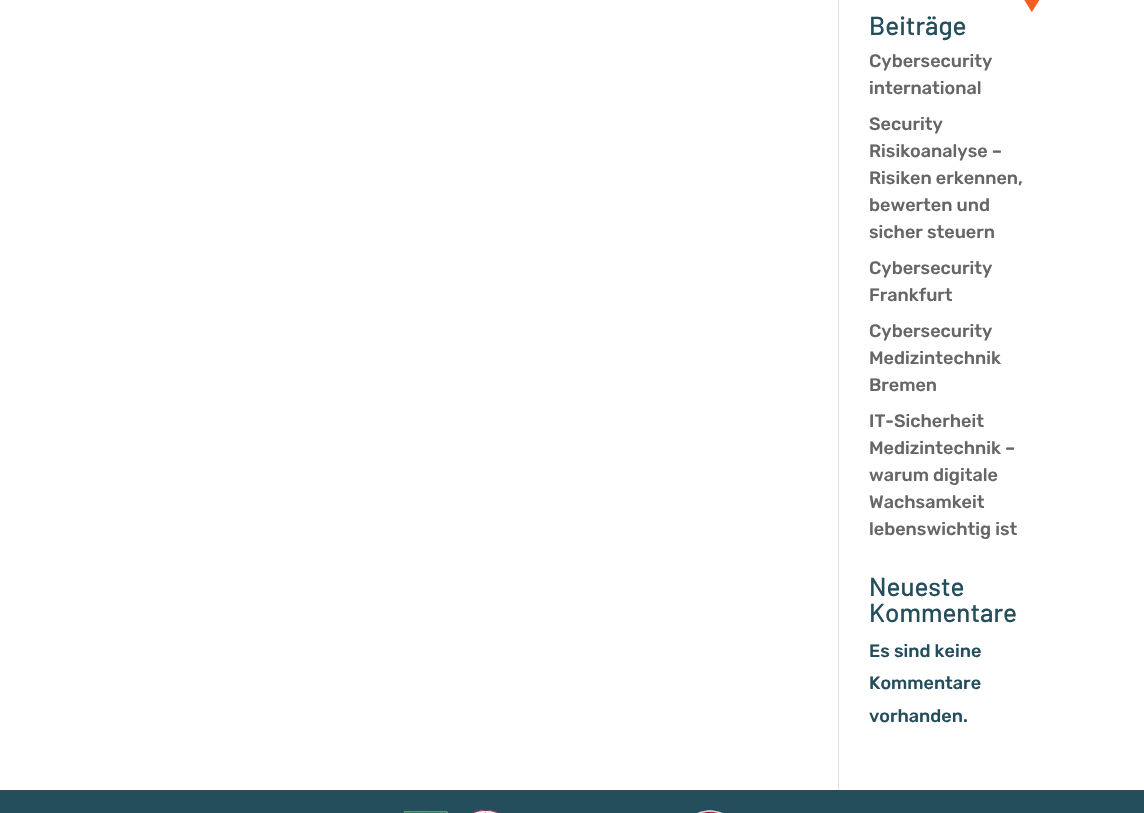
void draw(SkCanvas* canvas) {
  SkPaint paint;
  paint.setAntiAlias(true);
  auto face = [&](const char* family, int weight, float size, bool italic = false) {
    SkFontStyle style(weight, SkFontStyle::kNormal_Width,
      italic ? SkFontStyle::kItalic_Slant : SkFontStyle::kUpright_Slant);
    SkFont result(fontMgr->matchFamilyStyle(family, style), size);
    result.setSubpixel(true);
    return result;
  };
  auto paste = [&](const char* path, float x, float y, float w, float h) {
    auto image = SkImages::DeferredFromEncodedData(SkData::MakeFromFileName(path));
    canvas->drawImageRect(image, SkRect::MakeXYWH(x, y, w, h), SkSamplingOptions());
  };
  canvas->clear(0xffffffff);
  paste("img/1.png", 1024, 0, 16, 13);
  paint.setColor(0xffe2e2e2);
  canvas->drawRect(SkRect::MakeXYWH(838, 0, 1, 790), paint);
  paint.setColor(0xff254e5d);
  canvas->drawRect(SkRect::MakeXYWH(0, 790, 1144, 23), paint);
  paste("img/2.png", 404, 810, 319, 3);
  auto f0 = face("Barlow", 500, 26);
  canvas->drawString("Beiträge", 869, 35, f0, paint);
  auto f1 = face("Rubik", 300, 18);
  paint.setColor(0xff666666);
  {
    const struct { const char* s; float x, y; } items[] = {
      {"Cybersecurity", 869, 67},
      {"international", 869, 94},
      {"Security", 869, 130},
      {"Risikoanalyse –", 869, 157},
      {"Risiken erkennen,", 869, 184},
      {"bewerten und", 869, 211},
      {"sicher steuern", 869, 238},
      {"Cybersecurity", 869, 274},
      {"Frankfurt", 869, 301},
      {"Cybersecurity", 869, 337},
      {"Medizintechnik", 869, 364},
      {"Bremen", 869, 391},
      {"IT-Sicherheit", 869, 427},
      {"Medizintechnik –", 869, 454},
      {"warum digitale", 869, 481},
      {"Wachsamkeit", 869, 508},
      {"lebenswichtig ist", 869, 535},
    };
    for (auto [s, x, y] : items) {
      canvas->drawString(s, x, y, f1, paint);
    }
  }
  paint.setColor(0xff254e5d);
  canvas->drawString("Neueste", 869, 596, f0, paint);
  canvas->drawString("Kommentare", 869, 622, f0, paint);
  {
    const struct { const char* s; float x, y; } items[] = {
      {"Es sind keine", 869, 657},
      {"Kommentare", 869, 689},
      {"vorhanden.", 869, 722},
    };
    for (auto [s, x, y] : items) {
      canvas->drawString(s, x, y, f1, paint);
    }
  }
}
